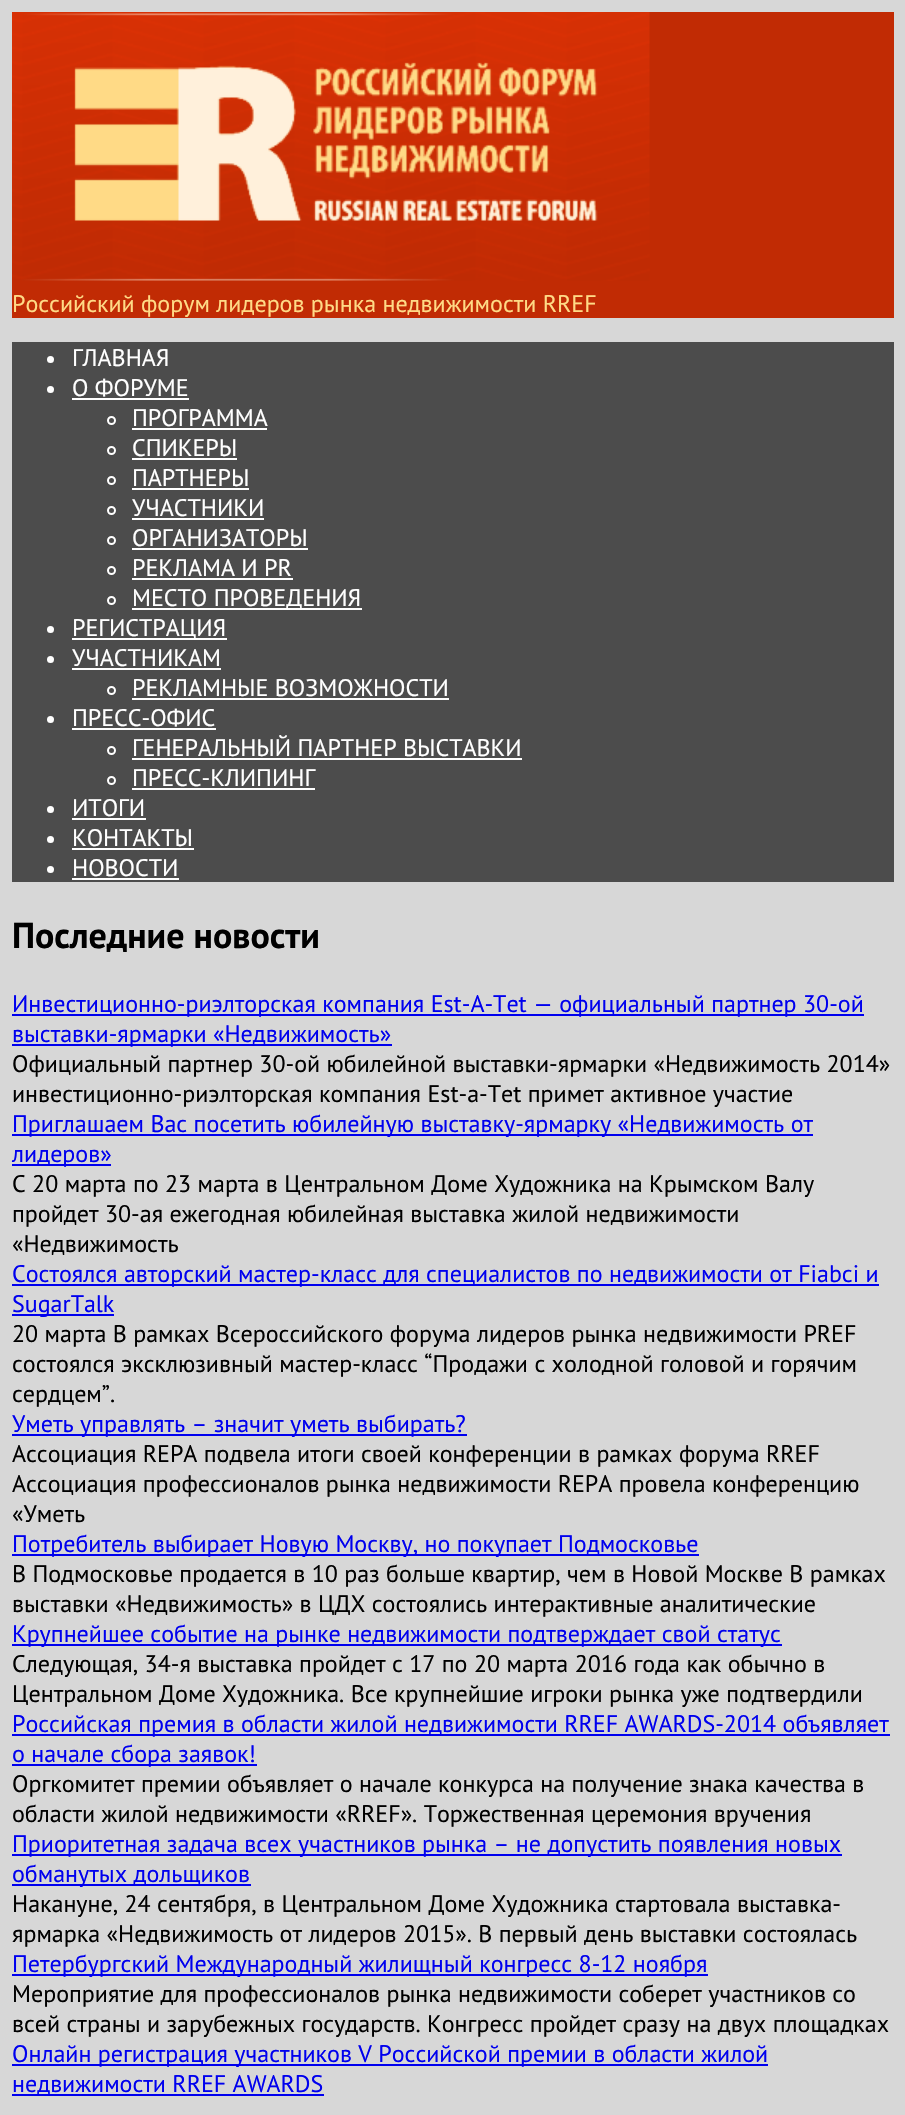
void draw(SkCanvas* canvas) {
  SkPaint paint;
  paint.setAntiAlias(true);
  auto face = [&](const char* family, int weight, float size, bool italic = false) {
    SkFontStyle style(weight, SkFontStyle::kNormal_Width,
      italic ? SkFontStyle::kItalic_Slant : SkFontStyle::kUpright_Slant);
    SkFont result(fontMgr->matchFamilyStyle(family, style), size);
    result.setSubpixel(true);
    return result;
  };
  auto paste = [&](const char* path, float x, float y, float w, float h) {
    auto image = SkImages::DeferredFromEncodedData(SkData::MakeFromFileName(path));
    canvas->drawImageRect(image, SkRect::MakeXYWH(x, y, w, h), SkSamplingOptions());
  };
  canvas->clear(0xffd7d7d7);
  paint.setColor(0xffc12b04);
  canvas->drawRect(SkRect::MakeXYWH(12, 12, 882, 306), paint);
  paste("img/1.png", 12, 12, 638, 269);
  paint.setColor(0xff4c4c4c);
  canvas->drawRect(SkRect::MakeXYWH(12, 342, 882, 540), paint);
  paint.setColor(0xffffffff);
  canvas->drawCircle(50.5f, 359.5f, 3.5f, paint);
  canvas->drawCircle(50.5f, 389.5f, 3.5f, paint);
  canvas->drawRect(SkRect::MakeXYWH(72, 398, 117, 2), paint);
  paint.setStroke(true);
  paint.setStrokeWidth(2);
  canvas->drawCircle(111.5f, 420.5f, 3.5f, paint);
  paint.setStroke(false);
  canvas->drawRect(SkRect::MakeXYWH(132, 428, 135, 2), paint);
  paint.setStroke(true);
  canvas->drawCircle(111.5f, 450.5f, 3.5f, paint);
  paint.setStroke(false);
  canvas->drawRect(SkRect::MakeXYWH(132, 458, 105, 2), paint);
  paint.setStroke(true);
  canvas->drawCircle(111.5f, 480.5f, 3.5f, paint);
  paint.setStroke(false);
  canvas->drawRect(SkRect::MakeXYWH(132, 488, 117, 2), paint);
  paint.setStroke(true);
  canvas->drawCircle(111.5f, 510.5f, 3.5f, paint);
  paint.setStroke(false);
  canvas->drawRect(SkRect::MakeXYWH(132, 518, 132, 2), paint);
  paint.setStroke(true);
  canvas->drawCircle(111.5f, 540.5f, 3.5f, paint);
  paint.setStroke(false);
  canvas->drawRect(SkRect::MakeXYWH(132, 548, 176, 2), paint);
  paint.setStroke(true);
  canvas->drawCircle(111.5f, 570.5f, 3.5f, paint);
  paint.setStroke(false);
  canvas->drawRect(SkRect::MakeXYWH(132, 578, 161, 2), paint);
  paint.setStroke(true);
  canvas->drawCircle(111.5f, 600.5f, 3.5f, paint);
  paint.setStroke(false);
  canvas->drawRect(SkRect::MakeXYWH(132, 608, 230, 2), paint);
  canvas->drawCircle(50.5f, 629.5f, 3.5f, paint);
  canvas->drawRect(SkRect::MakeXYWH(72, 638, 155, 2), paint);
  canvas->drawCircle(50.5f, 659.5f, 3.5f, paint);
  canvas->drawRect(SkRect::MakeXYWH(72, 668, 149, 2), paint);
  paint.setStroke(true);
  canvas->drawCircle(111.5f, 690.5f, 3.5f, paint);
  paint.setStroke(false);
  canvas->drawRect(SkRect::MakeXYWH(132, 698, 317, 2), paint);
  canvas->drawCircle(50.5f, 719.5f, 3.5f, paint);
  canvas->drawRect(SkRect::MakeXYWH(72, 728, 144, 2), paint);
  paint.setStroke(true);
  canvas->drawCircle(111.5f, 750.5f, 3.5f, paint);
  paint.setStroke(false);
  canvas->drawRect(SkRect::MakeXYWH(132, 758, 390, 2), paint);
  paint.setStroke(true);
  canvas->drawCircle(111.5f, 780.5f, 3.5f, paint);
  paint.setStroke(false);
  canvas->drawRect(SkRect::MakeXYWH(132, 788, 183, 2), paint);
  canvas->drawCircle(50.5f, 809.5f, 3.5f, paint);
  canvas->drawRect(SkRect::MakeXYWH(72, 818, 74, 2), paint);
  canvas->drawCircle(50.5f, 839.5f, 3.5f, paint);
  canvas->drawRect(SkRect::MakeXYWH(72, 848, 122, 2), paint);
  canvas->drawCircle(50.5f, 869.5f, 3.5f, paint);
  {
    const struct { float x, y, w, h; SkColor color; } items[] = {
      {72, 878, 107, 2, 0xffffffff},
      {12, 1014, 852, 2, 0xff0000ee},
      {12, 1044, 380, 2, 0xff0000ee},
      {12, 1134, 801, 2, 0xff0000ee},
      {12, 1164, 99, 2, 0xff0000ee},
      {12, 1284, 867, 2, 0xff0000ee},
      {12, 1314, 102, 2, 0xff0000ee},
      {12, 1434, 455, 2, 0xff0000ee},
      {12, 1554, 687, 2, 0xff0000ee},
      {12, 1644, 770, 2, 0xff0000ee},
      {12, 1734, 878, 2, 0xff0000ee},
      {12, 1764, 245, 2, 0xff0000ee},
      {12, 1854, 830, 2, 0xff0000ee},
      {12, 1884, 239, 2, 0xff0000ee},
      {12, 1974, 696, 2, 0xff0000ee},
      {12, 2064, 756, 2, 0xff0000ee},
      {12, 2094, 312, 2, 0xff0000ee},
    };
    for (auto [x, y, w, h, color] : items) {
      paint.setColor(color);
      canvas->drawRect(SkRect::MakeXYWH(x, y, w, h), paint);
    }
  }
  auto f0 = face("PT Sans", 400, 24);
  paint.setColor(0xffffda86);
  canvas->drawString("Российский форум лидеров рынка недвижимости RREF", 12, 312, f0, paint);
  paint.setColor(0xffffffff);
  {
    const struct { const char* s; float x, y; } items[] = {
      {"ГЛАВНАЯ", 72, 366},
      {"О ФОРУМЕ", 72, 396},
      {"ПРОГРАММА", 132, 426},
      {"СПИКЕРЫ", 132, 456},
      {"ПАРТНЕРЫ", 132, 486},
      {"УЧАСТНИКИ", 132, 516},
      {"ОРГАНИЗАТОРЫ", 132, 546},
      {"РЕКЛАМА И PR", 132, 576},
      {"МЕСТО ПРОВЕДЕНИЯ", 132, 606},
      {"РЕГИСТРАЦИЯ", 72, 636},
      {"УЧАСТНИКАМ", 72, 666},
      {"РЕКЛАМНЫЕ ВОЗМОЖНОСТИ", 132, 696},
      {"ПРЕСС-ОФИС", 72, 726},
      {"ГЕНЕРАЛЬНЫЙ ПАРТНЕР ВЫСТАВКИ", 132, 756},
      {"ПРЕСС-КЛИПИНГ", 132, 786},
      {"ИТОГИ", 72, 816},
      {"КОНТАКТЫ", 72, 846},
      {"НОВОСТИ", 72, 876},
    };
    for (auto [s, x, y] : items) {
      canvas->drawString(s, x, y, f0, paint);
    }
  }
  auto f1 = face("PT Sans", 700, 36);
  paint.setColor(0xff000000);
  canvas->drawString("Последние новости", 12, 948, f1, paint);
  paint.setColor(0xff0000ee);
  canvas->drawString("Инвестиционно-риэлторская компания Est-A-Tet — официальный партнер 30-ой", 12, 1012, f0, paint);
  canvas->drawString("выставки-ярмарки «Недвижимость»", 12, 1042, f0, paint);
  paint.setColor(0xff000000);
  canvas->drawString("Официальный партнер 30-ой юбилейной выставки-ярмарки «Недвижимость 2014»", 12, 1072, f0, paint);
  canvas->drawString("инвестиционно-риэлторская компания Est-a-Tet примет активное участие", 12, 1102, f0, paint);
  paint.setColor(0xff0000ee);
  canvas->drawString("Приглашаем Вас посетить юбилейную выставку-ярмарку «Недвижимость от", 12, 1132, f0, paint);
  canvas->drawString("лидеров»", 12, 1162, f0, paint);
  paint.setColor(0xff000000);
  {
    const struct { const char* s; float x, y; } items[] = {
      {"C 20 марта по 23 марта в Центральном Доме Художника на Крымском Валу", 12, 1192},
      {"пройдет 30-ая ежегодная юбилейная выставка жилой недвижимости", 12, 1222},
      {"«Недвижимость", 12, 1252},
    };
    for (auto [s, x, y] : items) {
      canvas->drawString(s, x, y, f0, paint);
    }
  }
  paint.setColor(0xff0000ee);
  canvas->drawString("Состоялся авторский мастер-класс для специалистов по недвижимости от Fiabci и", 12, 1282, f0, paint);
  canvas->drawString("SugarTalk", 12, 1312, f0, paint);
  paint.setColor(0xff000000);
  {
    const struct { const char* s; float x, y; } items[] = {
      {"20 марта В рамках Всероссийского форума лидеров рынка недвижимости PREF", 12, 1342},
      {"состоялся эксклюзивный мастер-класс “Продажи с холодной головой и горячим", 12, 1372},
      {"сердцем”.", 12, 1402},
    };
    for (auto [s, x, y] : items) {
      canvas->drawString(s, x, y, f0, paint);
    }
  }
  paint.setColor(0xff0000ee);
  canvas->drawString("Уметь управлять – значит уметь выбирать?", 12, 1432, f0, paint);
  paint.setColor(0xff000000);
  {
    const struct { const char* s; float x, y; } items[] = {
      {"Ассоциация REPA подвела итоги своей конференции в рамках форума RREF", 12, 1462},
      {"Ассоциация профессионалов рынка недвижимости REPA провела конференцию", 12, 1492},
      {"«Уметь", 12, 1522},
    };
    for (auto [s, x, y] : items) {
      canvas->drawString(s, x, y, f0, paint);
    }
  }
  paint.setColor(0xff0000ee);
  canvas->drawString("Потребитель выбирает Новую Москву, но покупает Подмосковье", 12, 1552, f0, paint);
  paint.setColor(0xff000000);
  canvas->drawString("В Подмосковье продается в 10 раз больше квартир, чем в Новой Москве В рамках", 12, 1582, f0, paint);
  canvas->drawString("выставки «Недвижимость» в ЦДХ состоялись интерактивные аналитические", 12, 1612, f0, paint);
  paint.setColor(0xff0000ee);
  canvas->drawString("Крупнейшее событие на рынке недвижимости подтверждает свой статус", 12, 1642, f0, paint);
  paint.setColor(0xff000000);
  canvas->drawString("Следующая, 34-я выставка пройдет с 17 по 20 марта 2016 года как обычно в", 12, 1672, f0, paint);
  canvas->drawString("Центральном Доме Художника. Все крупнейшие игроки рынка уже подтвердили", 12, 1702, f0, paint);
  paint.setColor(0xff0000ee);
  canvas->drawString("Российская премия в области жилой недвижимости RREF AWARDS-2014 объявляет", 12, 1732, f0, paint);
  canvas->drawString("о начале сбора заявок!", 12, 1762, f0, paint);
  paint.setColor(0xff000000);
  canvas->drawString("Оргкомитет премии объявляет о начале конкурса на получение знака качества в", 12, 1792, f0, paint);
  canvas->drawString("области жилой недвижимости «RREF». Торжественная церемония вручения", 12, 1822, f0, paint);
  paint.setColor(0xff0000ee);
  canvas->drawString("Приоритетная задача всех участников рынка – не допустить появления новых", 12, 1852, f0, paint);
  canvas->drawString("обманутых дольщиков", 12, 1882, f0, paint);
  paint.setColor(0xff000000);
  canvas->drawString("Накануне, 24 сентября, в Центральном Доме Художника стартовала выставка-", 12, 1912, f0, paint);
  canvas->drawString("ярмарка «Недвижимость от лидеров 2015». В первый день выставки состоялась", 12, 1942, f0, paint);
  paint.setColor(0xff0000ee);
  canvas->drawString("Петербургский Международный жилищный конгресс 8-12 ноября", 12, 1972, f0, paint);
  paint.setColor(0xff000000);
  canvas->drawString("Мероприятие для профессионалов рынка недвижимости соберет участников со", 12, 2002, f0, paint);
  canvas->drawString("всей страны и зарубежных государств. Конгресс пройдет сразу на двух площадках", 12, 2032, f0, paint);
  paint.setColor(0xff0000ee);
  canvas->drawString("Онлайн регистрация участников V Российской премии в области жилой", 12, 2062, f0, paint);
  canvas->drawString("недвижимости RREF AWARDS", 12, 2092, f0, paint);
}
